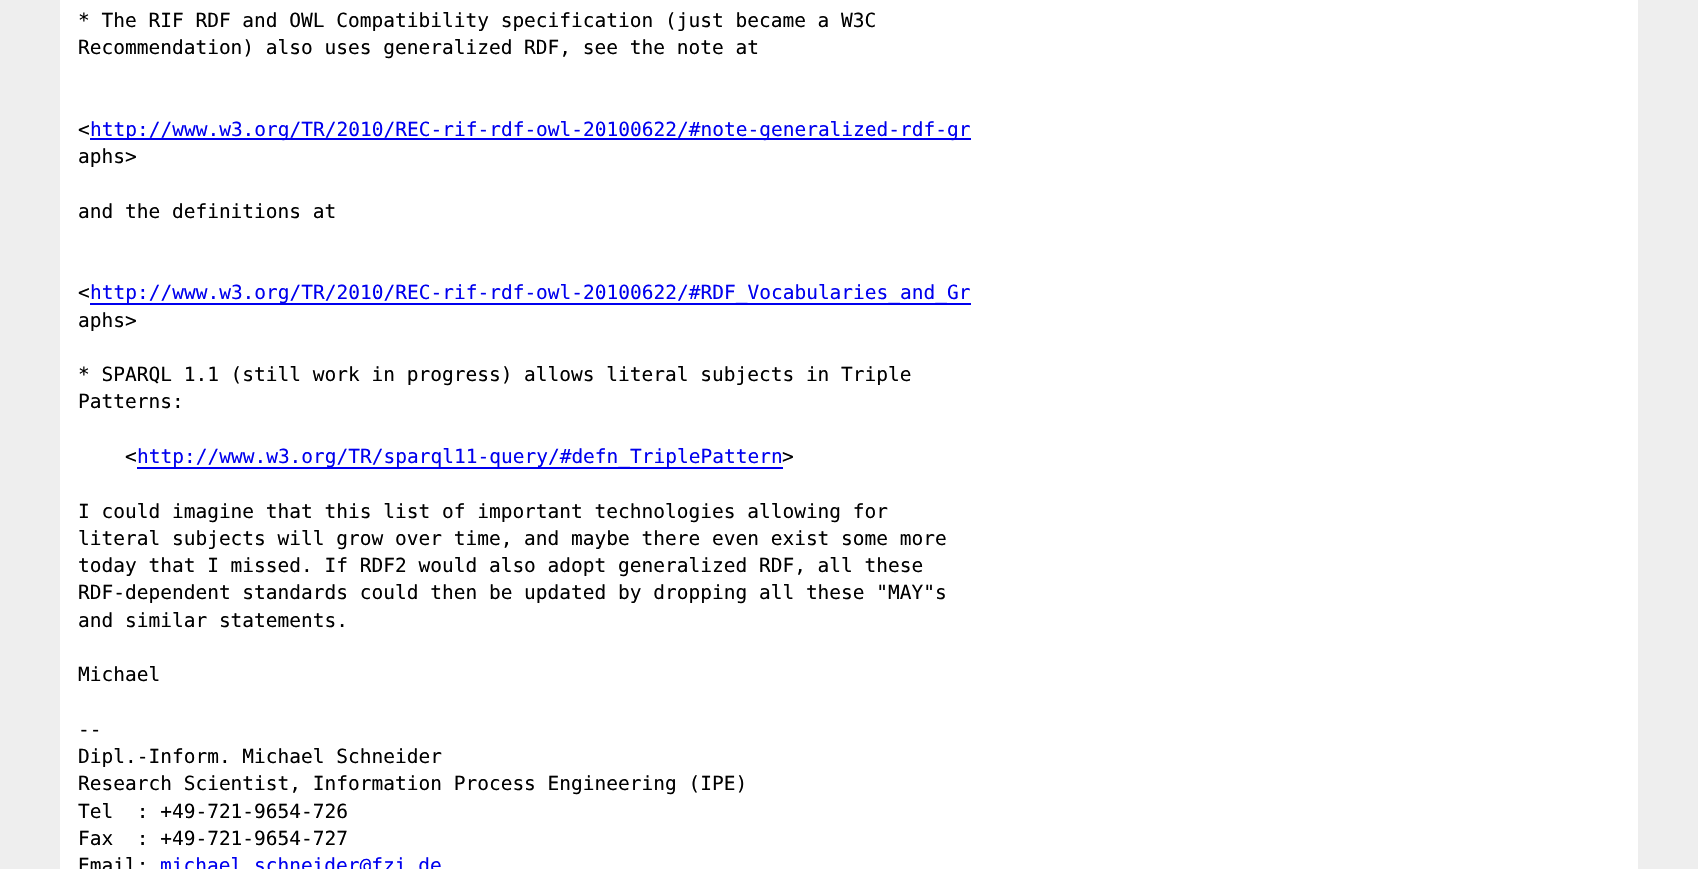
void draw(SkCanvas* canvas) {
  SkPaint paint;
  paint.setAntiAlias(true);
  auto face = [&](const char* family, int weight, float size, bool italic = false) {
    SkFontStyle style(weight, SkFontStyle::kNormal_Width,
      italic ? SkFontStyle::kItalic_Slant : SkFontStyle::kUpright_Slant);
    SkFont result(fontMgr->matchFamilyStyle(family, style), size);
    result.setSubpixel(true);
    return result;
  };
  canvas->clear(0xffeeeeee);
  {
    const struct { float x, y, w, h; SkColor color; } items[] = {
      {60, 0, 1578, 869, 0xffffffff},
      {90, 138, 881, 2, 0xff0000ee},
      {90, 303, 881, 2, 0xff0000ee},
      {137, 467, 646, 2, 0xff0000ee},
    };
    for (auto [x, y, w, h, color] : items) {
      paint.setColor(color);
      canvas->drawRect(SkRect::MakeXYWH(x, y, w, h), paint);
    }
  }
  auto f0 = face("DejaVu Sans Mono", 400, 19.5f);
  paint.setColor(0xff000000);
  {
    const struct { const char* s; float x, y; } items[] = {
      {"* The RIF RDF and OWL Compatibility specification (just became a W3C", 78, 27},
      {"Recommendation) also uses generalized RDF, see the note at", 78, 54},
      {"<", 78, 136},
    };
    for (auto [s, x, y] : items) {
      canvas->drawString(s, x, y, f0, paint);
    }
  }
  paint.setColor(0xff0000ee);
  canvas->drawString("http://www.w3.org/TR/2010/REC-rif-rdf-owl-20100622/#note-generalized-rdf-gr", 90, 136, f0, paint);
  paint.setColor(0xff000000);
  {
    const struct { const char* s; float x, y; } items[] = {
      {"aphs>", 78, 163},
      {"and the definitions at", 78, 218},
      {"<", 78, 299},
    };
    for (auto [s, x, y] : items) {
      canvas->drawString(s, x, y, f0, paint);
    }
  }
  paint.setColor(0xff0000ee);
  canvas->drawString("http://www.w3.org/TR/2010/REC-rif-rdf-owl-20100622/#RDF_Vocabularies_and_Gr", 90, 299, f0, paint);
  paint.setColor(0xff000000);
  {
    const struct { const char* s; float x, y; } items[] = {
      {"aphs>", 78, 327},
      {"* SPARQL 1.1 (still work in progress) allows literal subjects in Triple", 78, 381},
      {"Patterns:", 78, 408},
      {"<", 125, 463},
    };
    for (auto [s, x, y] : items) {
      canvas->drawString(s, x, y, f0, paint);
    }
  }
  paint.setColor(0xff0000ee);
  canvas->drawString("http://www.w3.org/TR/sparql11-query/#defn_TriplePattern", 137, 463, f0, paint);
  paint.setColor(0xff000000);
  {
    const struct { const char* s; float x, y; } items[] = {
      {">", 782, 463},
      {"I could imagine that this list of important technologies allowing for", 78, 518},
      {"literal subjects will grow over time, and maybe there even exist some more", 78, 545},
      {"today that I missed. If RDF2 would also adopt generalized RDF, all these", 78, 572},
      {"RDF-dependent standards could then be updated by dropping all these \"MAY\"s", 78, 599},
      {"and similar statements.", 78, 627},
      {"Michael", 78, 681},
      {"--", 78, 736},
      {"Dipl.-Inform. Michael Schneider", 78, 763},
      {"Research Scientist, Information Process Engineering (IPE)", 78, 790},
      {"Tel  : +49-721-9654-726", 78, 818},
      {"Fax  : +49-721-9654-727", 78, 845},
      {"Email:", 78, 872},
    };
    for (auto [s, x, y] : items) {
      canvas->drawString(s, x, y, f0, paint);
    }
  }
  paint.setColor(0xff0000ee);
  canvas->drawString("michael.schneider@fzi.de", 160, 872, f0, paint);
}
